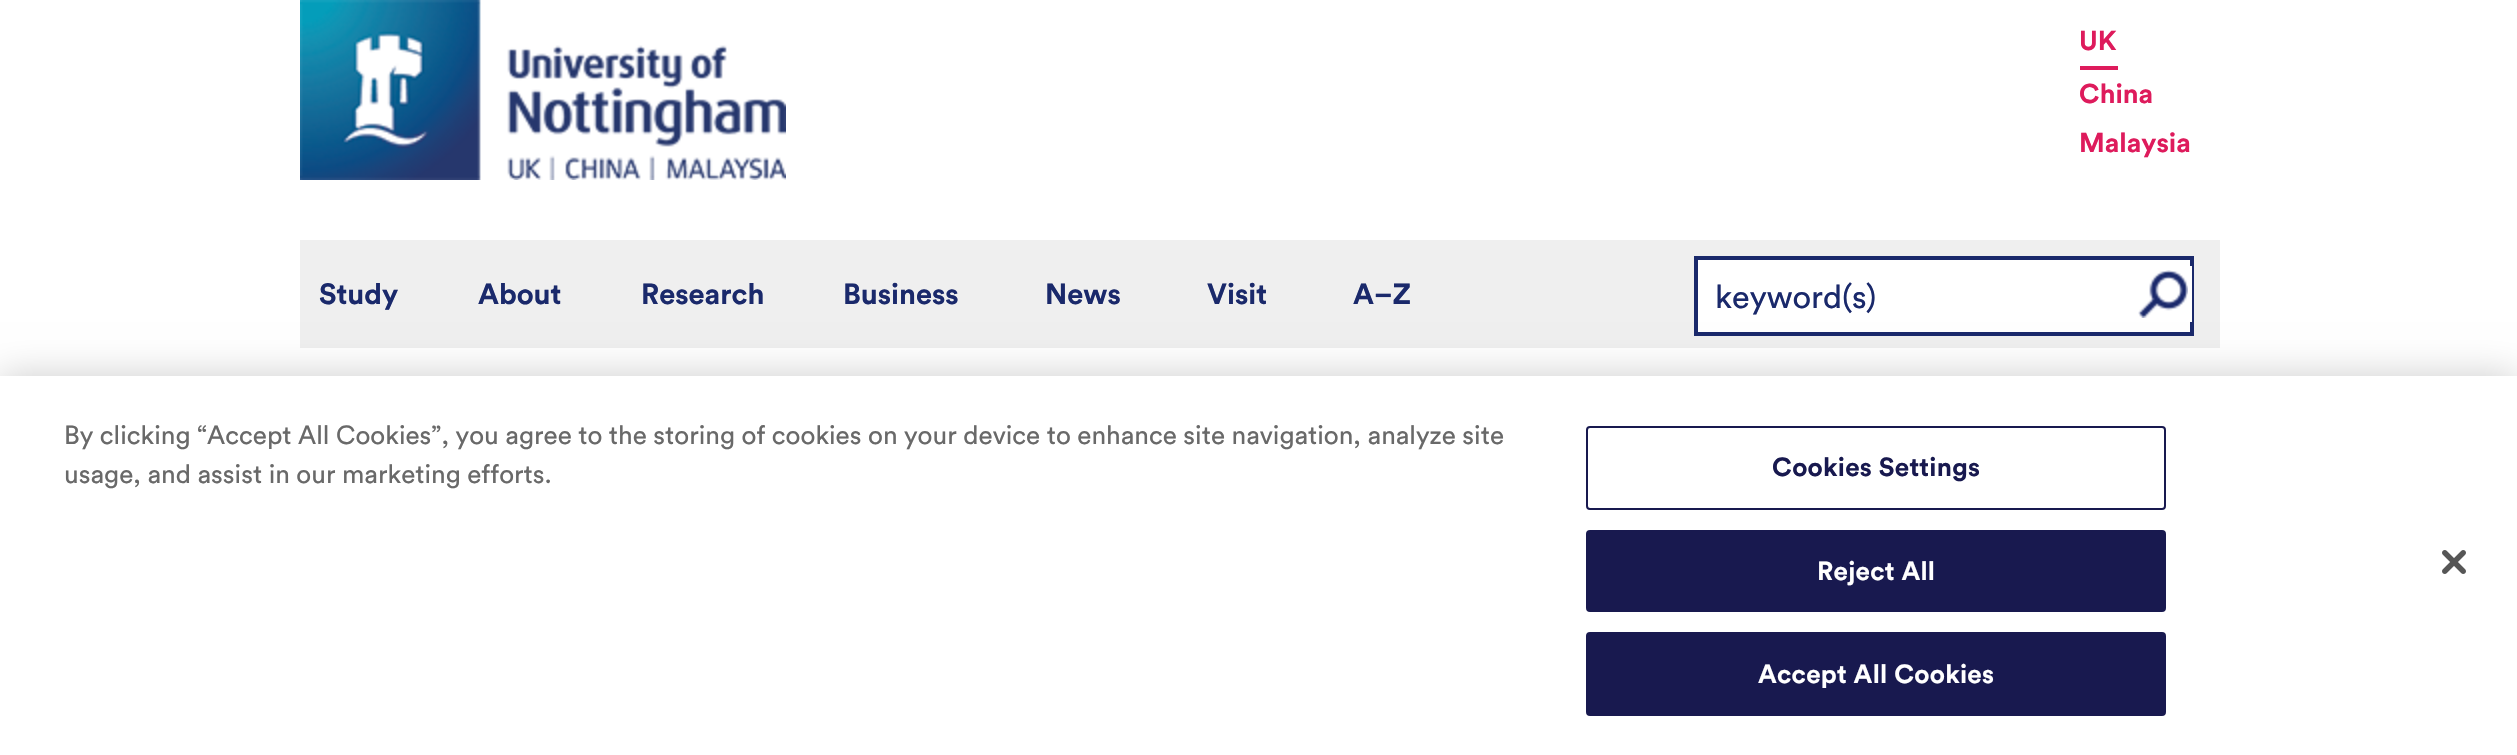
void draw(SkCanvas* canvas) {
  SkPaint paint;
  paint.setAntiAlias(true);
  auto face = [&](const char* family, int weight, float size, bool italic = false) {
    SkFontStyle style(weight, SkFontStyle::kNormal_Width,
      italic ? SkFontStyle::kItalic_Slant : SkFontStyle::kUpright_Slant);
    SkFont result(fontMgr->matchFamilyStyle(family, style), size);
    result.setSubpixel(true);
    return result;
  };
  auto writeSpaced = [&](const char* s, float x, float y, const SkFont& font, const SkPaint& ink, float letter, float word) {
    std::vector<SkGlyphID> glyphs(font.countText(s, strlen(s), SkTextEncoding::kUTF8));
    std::vector<float> xs(glyphs.size());
    font.textToGlyphs(s, strlen(s), SkTextEncoding::kUTF8, glyphs);
    font.getXPos(glyphs, xs, x);
    float extra = 0;
    for (size_t i = 0; i < glyphs.size(); i++) {
      xs[i] += extra;
      extra += letter + word * (glyphs[i] == font.unicharToGlyph(' '));
    }
    canvas->drawTextBlob(SkTextBlob::MakeFromPosHGlyphs(glyphs, xs, y, font), 0, 0, ink);
  };
  auto paste = [&](const char* path, float x, float y, float w, float h) {
    auto image = SkImages::DeferredFromEncodedData(SkData::MakeFromFileName(path));
    canvas->drawImageRect(image, SkRect::MakeXYWH(x, y, w, h), SkSamplingOptions());
  };
  canvas->clear(0xffffffff);
  paste("img/1.png", 300, 0, 486, 180);
  paint.setColor(0xffde1b5c);
  canvas->drawRect(SkRect::MakeXYWH(2080, 66, 38, 4), paint);
  paint.setColor(0xffefefef);
  canvas->drawRect(SkRect::MakeXYWH(300, 240, 1920, 108), paint);
  paint.setColor(0xffffffff);
  canvas->drawRect(SkRect::MakeXYWH(1696, 258, 496, 76), paint);
  paint.setStroke(true);
  paint.setStrokeWidth(4);
  paint.setColor(0xff1a296b);
  canvas->drawRect(SkRect::MakeXYWH(1696, 258, 496, 76), paint);
  paint.setStroke(false);
  paint.setColor(0xffffffff);
  canvas->drawRect(SkRect::MakeXYWH(2190, 266, 2, 56), paint);
  paste("img/2.png", 2138, 270, 50, 48);
  paint.setColor(0x33000000);
  paint.setMaskFilter(SkMaskFilter::MakeBlur(kNormal_SkBlurStyle, 18));
  canvas->drawRect(SkRect::MakeXYWH(0, 376, 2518, 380), paint);
  paint.setMaskFilter(nullptr);
  paint.setColor(0xffffffff);
  canvas->drawRect(SkRect::MakeXYWH(0, 376, 2517, 379), paint);
  paint.setStroke(true);
  paint.setStrokeWidth(2);
  paint.setColor(0xff18194f);
  canvas->drawRoundRect(SkRect::MakeXYWH(1587, 427, 578, 82), 3, 3, paint);
  paint.setStroke(false);
  canvas->drawRoundRect(SkRect::MakeXYWH(1587, 531, 578, 80), 3, 3, paint);
  paint.setStroke(true);
  canvas->drawRoundRect(SkRect::MakeXYWH(1587, 531, 578, 80), 3, 3, paint);
  paint.setStroke(false);
  canvas->drawRoundRect(SkRect::MakeXYWH(1587, 633, 578, 82), 3, 3, paint);
  paint.setStroke(true);
  canvas->drawRoundRect(SkRect::MakeXYWH(1587, 633, 578, 82), 3, 3, paint);
  paste("img/3.png", 2442, 550, 24, 24);
  auto f0 = face("Circular", 700, 27);
  paint.setStroke(false);
  paint.setColor(0xffde1b5c);
  {
    const struct { const char* s; float x, y; } items[] = {
      {"UK", 2079, 50},
      {"China", 2079, 103},
      {"Malaysia", 2079, 152},
    };
    for (auto [s, x, y] : items) {
      canvas->drawString(s, x, y, f0, paint);
    }
  }
  auto f1 = face("Circular", 700, 29);
  paint.setColor(0xff1a296b);
  {
    const struct { const char* s; float x, y; } items[] = {
      {"Study", 319, 304},
      {"About", 478, 304},
      {"Research", 641, 304},
      {"Business", 843, 304},
      {"News", 1045, 304},
      {"Visit", 1207, 304},
      {"A–Z", 1353, 304},
    };
    for (auto [s, x, y] : items) {
      canvas->drawString(s, x, y, f1, paint);
    }
  }
  auto f2 = face("Circular", 400, 32.5f);
  canvas->drawString("keyword(s)", 1715, 308, f2, paint);
  auto f3 = face("Circular", 400, 26.02f);
  paint.setColor(0xff696969);
  canvas->drawString("By clicking “Accept All Cookies”, you agree to the storing of cookies on your device to enhance site navigation, analyze site", 64, 444, f3, paint);
  canvas->drawString("usage, and assist in our marketing efforts.", 64, 483, f3, paint);
  auto f4 = face("Circular", 700, 26.02f);
  paint.setColor(0xff18194f);
  writeSpaced("Cookies Settings", 1772, 476, f4, paint, 0.25f, 0);
  paint.setColor(0xffffffff);
  writeSpaced("Reject All", 1817, 580, f4, paint, 0.25f, 0);
  writeSpaced("Accept All Cookies", 1758, 683, f4, paint, 0.25f, 0);
}
